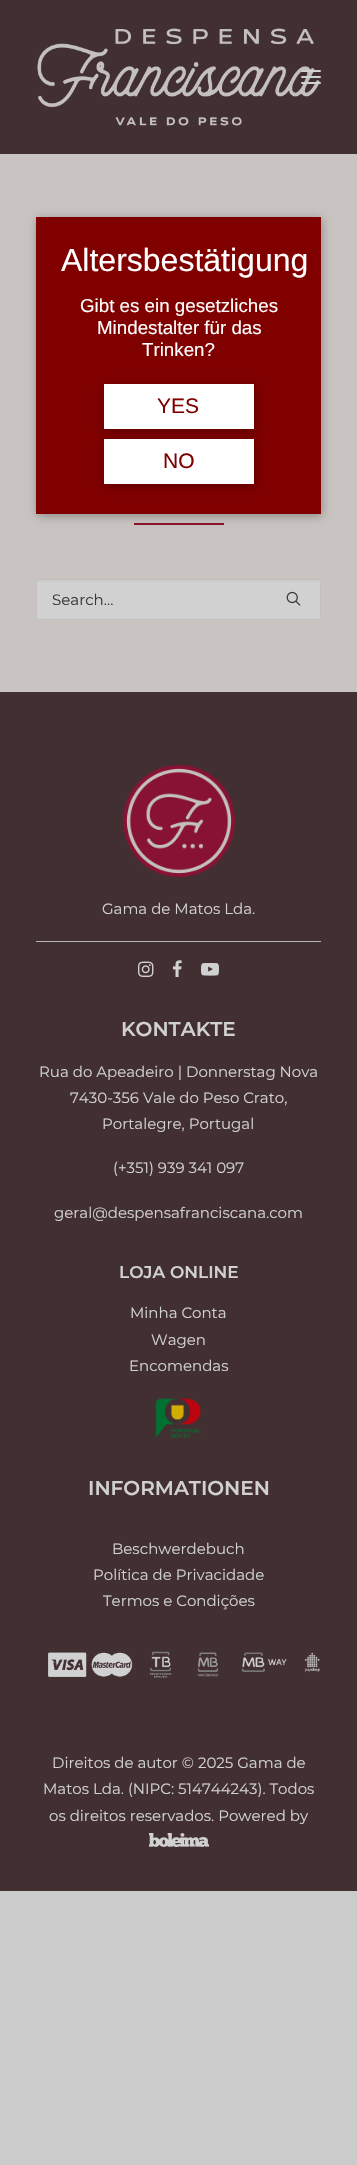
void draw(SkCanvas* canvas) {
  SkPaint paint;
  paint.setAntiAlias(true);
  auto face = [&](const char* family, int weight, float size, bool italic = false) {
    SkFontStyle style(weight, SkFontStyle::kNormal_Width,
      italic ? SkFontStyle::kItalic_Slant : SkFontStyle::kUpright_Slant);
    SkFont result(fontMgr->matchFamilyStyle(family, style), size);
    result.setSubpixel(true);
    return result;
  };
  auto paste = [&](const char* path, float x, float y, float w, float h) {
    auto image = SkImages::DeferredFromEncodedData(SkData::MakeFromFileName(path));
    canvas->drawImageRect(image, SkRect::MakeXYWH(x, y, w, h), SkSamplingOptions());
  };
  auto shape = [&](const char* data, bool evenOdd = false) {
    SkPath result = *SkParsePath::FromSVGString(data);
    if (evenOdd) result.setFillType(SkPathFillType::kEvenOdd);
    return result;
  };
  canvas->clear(0xffcbcbcb);
  paint.setColor(0xffc9c4c1);
  canvas->drawRect(SkRect::MakeXYWH(0, 154, 357, 538), paint);
  paint.setColor(0xff8c132e);
  canvas->drawRect(SkRect::MakeXYWH(134, 523, 90, 2), paint);
  paint.setColor(0x4d000000);
  paint.setMaskFilter(SkMaskFilter::MakeBlur(kNormal_SkBlurStyle, 4.5f));
  canvas->drawRect(SkRect::MakeXYWH(37, 219, 285, 297), paint);
  paint.setMaskFilter(nullptr);
  paint.setColor(0xff800000);
  canvas->drawRect(SkRect::MakeXYWH(36, 217, 285, 297), paint);
  paint.setColor(0x4d000000);
  paint.setMaskFilter(SkMaskFilter::MakeBlur(kNormal_SkBlurStyle, 4.5f));
  canvas->drawRect(SkRect::MakeXYWH(105, 386, 150, 45), paint);
  paint.setMaskFilter(nullptr);
  paint.setColor(0xffffffff);
  canvas->drawRect(SkRect::MakeXYWH(104, 384, 150, 45), paint);
  paint.setColor(0x4d000000);
  paint.setMaskFilter(SkMaskFilter::MakeBlur(kNormal_SkBlurStyle, 4.5f));
  canvas->drawRect(SkRect::MakeXYWH(105, 441, 150, 45), paint);
  paint.setMaskFilter(nullptr);
  paint.setColor(0xffffffff);
  canvas->drawRect(SkRect::MakeXYWH(104, 439, 150, 45), paint);
  paint.setColor(0xff422f32);
  canvas->drawRect(SkRect::MakeXYWH(0, 0, 357, 154), paint);
  paste("img/1.png", 37, 28, 283, 98);
  paint.setColor(0xffd1d1d1);
  canvas->drawRoundRect(SkRect::MakeXYWH(301, 76, 20, 2), 1, 1, paint);
  canvas->drawRoundRect(SkRect::MakeXYWH(301, 70, 20, 2), 1, 1, paint);
  canvas->drawRoundRect(SkRect::MakeXYWH(301, 82, 20, 2), 1, 1, paint);
  canvas->drawRoundRect(SkRect::MakeXYWH(36, 579, 285, 41), 2, 2, paint);
  paint.setColor(0xffcccccc);
  canvas->drawPath(shape("M38 582H319C320 582 320 582 320 583C320 582 320 580 319 580H37V583C37 582 37 582 38 582Z"), paint);
  paint.setStroke(true);
  paint.setStrokeWidth(1);
  paint.setColor(0xffc0c0c0);
  canvas->drawRoundRect(SkRect::MakeXYWH(36.5f, 579.5f, 284, 40), 1.5f, 1.5f, paint);
  paste("img/2.png", 286, 591, 15, 15);
  paint.setStroke(false);
  paint.setColor(0xff422f32);
  canvas->drawRect(SkRect::MakeXYWH(0, 692, 357, 1199), paint);
  paste("img/3.png", 123, 765, 113, 113);
  paint.setColor(0xffb5b5b5);
  canvas->drawRect(SkRect::MakeXYWH(36, 941, 285, 1), paint);
  paste("img/4.png", 138, 961, 16, 16);
  paste("img/5.png", 172, 960, 10, 17);
  paste("img/6.png", 201, 963, 18, 13);
  paste("img/7.png", 155, 1398, 46, 40);
  paste("img/8.png", 48, 1651, 272, 27);
  paste("img/9.png", 149, 1833, 60, 14);
  auto f0 = face("Liberation Sans", 400, 32);
  paint.setColor(0xffffffff);
  canvas->drawString("Altersbestätigung", 61, 271, f0, paint);
  auto f1 = face("Liberation Sans", 400, 18.75f);
  {
    const struct { const char* s; float x, y; } items[] = {
      {"Gibt es ein gesetzliches", 80, 312},
      {"Mindestalter für das", 97, 334},
      {"Trinken?", 142, 356},
    };
    for (auto [s, x, y] : items) {
      canvas->drawString(s, x, y, f1, paint);
    }
  }
  auto f2 = face("Liberation Sans", 400, 21);
  paint.setColor(0xff800000);
  canvas->drawString("YES", 157, 413, f2, paint);
  canvas->drawString("NO", 163, 468, f2, paint);
  auto f3 = face("Montserrat", 400, 15);
  paint.setColor(0xff383838);
  canvas->drawString("Search…", 52, 605, f3, paint);
  paint.setColor(0xffd1d1d1);
  canvas->drawString("Gama de Matos Lda.", 102, 914, f3, paint);
  auto f4 = face("Montserrat", 600, 20);
  canvas->drawString("KONTAKTE", 121, 1036, f4, paint);
  {
    const struct { const char* s; float x, y; } items[] = {
      {"Rua do Apeadeiro | Donnerstag Nova", 39, 1077},
      {"7430-356 Vale do Peso Crato,", 70, 1103},
      {"Portalegre, Portugal", 102, 1129},
      {"(+351) 939 341 097", 113, 1173},
      {"geral@despensafranciscana.com", 54, 1218},
    };
    for (auto [s, x, y] : items) {
      canvas->drawString(s, x, y, f3, paint);
    }
  }
  auto f5 = face("Montserrat", 600, 17);
  canvas->drawString("LOJA ONLINE", 119, 1278, f5, paint);
  {
    const struct { const char* s; float x, y; } items[] = {
      {"Minha Conta", 130, 1318},
      {"Wagen", 151, 1345},
      {"Encomendas", 129, 1371},
    };
    for (auto [s, x, y] : items) {
      canvas->drawString(s, x, y, f3, paint);
    }
  }
  canvas->drawString("INFORMATIONEN", 88, 1495, f4, paint);
  {
    const struct { const char* s; float x, y; } items[] = {
      {"Beschwerdebuch", 112, 1554},
      {"Política de Privacidade", 93, 1580},
      {"Termos e Condições", 103, 1606},
      {"Direitos de autor © 2025 Gama de", 52, 1768},
      {"Matos Lda. (NIPC: 514744243). Todos", 43, 1794},
      {"os direitos reservados. Powered by", 49, 1821},
    };
    for (auto [s, x, y] : items) {
      canvas->drawString(s, x, y, f3, paint);
    }
  }
}
